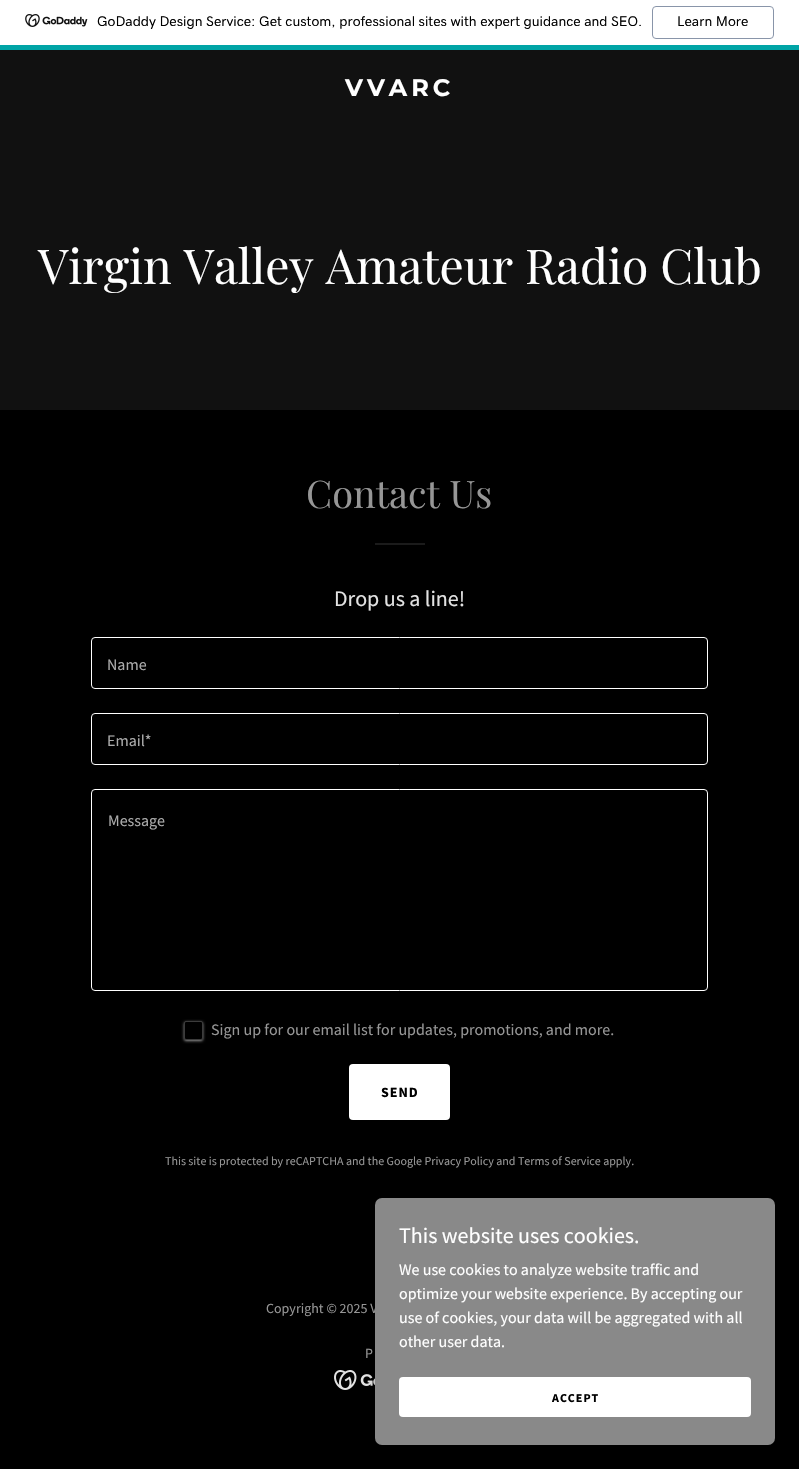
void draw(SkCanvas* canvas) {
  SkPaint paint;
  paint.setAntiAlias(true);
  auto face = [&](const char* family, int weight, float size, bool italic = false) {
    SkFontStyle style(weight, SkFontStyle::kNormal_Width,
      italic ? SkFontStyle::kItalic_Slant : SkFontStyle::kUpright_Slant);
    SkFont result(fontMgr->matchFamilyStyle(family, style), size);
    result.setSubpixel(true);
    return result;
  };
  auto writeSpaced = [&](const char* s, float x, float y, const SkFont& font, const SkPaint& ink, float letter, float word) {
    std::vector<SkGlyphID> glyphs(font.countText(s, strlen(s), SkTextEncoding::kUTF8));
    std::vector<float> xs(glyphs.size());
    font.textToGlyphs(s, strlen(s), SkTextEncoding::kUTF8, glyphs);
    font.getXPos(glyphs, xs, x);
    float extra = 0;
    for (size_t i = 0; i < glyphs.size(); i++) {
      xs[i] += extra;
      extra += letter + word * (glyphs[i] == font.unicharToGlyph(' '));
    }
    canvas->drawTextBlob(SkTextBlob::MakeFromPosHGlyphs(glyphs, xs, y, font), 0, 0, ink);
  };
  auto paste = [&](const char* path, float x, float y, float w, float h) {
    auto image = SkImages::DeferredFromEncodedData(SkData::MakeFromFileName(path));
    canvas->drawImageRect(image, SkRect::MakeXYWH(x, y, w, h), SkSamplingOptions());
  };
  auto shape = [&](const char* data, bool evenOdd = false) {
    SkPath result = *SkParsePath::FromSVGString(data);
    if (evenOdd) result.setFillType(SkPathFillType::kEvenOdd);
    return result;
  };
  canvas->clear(0xff000000);
  paint.setColor(0xffffffff);
  canvas->drawRect(SkRect::MakeXYWH(0, 0, 799, 45), paint);
  paint.setColor(0xff00a4a6);
  canvas->drawRect(SkRect::MakeXYWH(0, 45, 799, 5), paint);
  paste("img/1.png", 25, 14, 63, 13);
  paint.setStroke(true);
  paint.setStrokeWidth(1);
  paint.setColor(0xff8995a9);
  canvas->drawRoundRect(SkRect::MakeXYWH(652.5f, 6.5f, 121, 32), 3.5f, 3.5f, paint);
  paint.setStroke(false);
  paint.setColor(0xff111111);
  canvas->drawRect(SkRect::MakeXYWH(0, 50, 799, 360), paint);
  paint.setColor(0xff1b1b1b);
  canvas->drawRect(SkRect::MakeXYWH(375, 543, 50, 2), paint);
  paint.setStroke(true);
  paint.setColor(0xffffffff);
  canvas->drawRoundRect(SkRect::MakeXYWH(91.5f, 637.5f, 616, 51), 3.5f, 3.5f, paint);
  canvas->drawRoundRect(SkRect::MakeXYWH(91.5f, 713.5f, 616, 51), 3.5f, 3.5f, paint);
  canvas->drawRoundRect(SkRect::MakeXYWH(91.5f, 789.5f, 616, 201), 3.5f, 3.5f, paint);
  canvas->save();
  canvas->clipPath(shape("M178 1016H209V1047H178ZM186 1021H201C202 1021 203 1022 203 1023V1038C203 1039 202 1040 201 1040H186C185 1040 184 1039 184 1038V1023C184 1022 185 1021 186 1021Z", true), true);
  paint.setStroke(false);
  paint.setColor(0xff969696);
  paint.setMaskFilter(SkMaskFilter::MakeBlur(kNormal_SkBlurStyle, 1.5f));
  canvas->drawRoundRect(SkRect::MakeXYWH(184, 1022, 19, 19), 2, 2, paint);
  paint.setMaskFilter(nullptr);
  canvas->restore();
  paint.setStroke(true);
  paint.setColor(0x80777777);
  canvas->drawRoundRect(SkRect::MakeXYWH(184.5f, 1021.5f, 18, 18), 1.5f, 1.5f, paint);
  paint.setStroke(false);
  paint.setColor(0xffffffff);
  canvas->drawRoundRect(SkRect::MakeXYWH(349, 1064, 101, 56), 4, 4, paint);
  paste("img/2.png", 334, 1370, 41, 20);
  paint.setColor(0x4d000000);
  paint.setMaskFilter(SkMaskFilter::MakeBlur(kNormal_SkBlurStyle, 3));
  canvas->drawRoundRect(SkRect::MakeXYWH(375, 1200, 400, 247), 7, 7, paint);
  paint.setMaskFilter(nullptr);
  auto f0 = face("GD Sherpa", 500, 14);
  paint.setColor(0xff000000);
  canvas->drawString("GoDaddy Design Service: Get custom, professional sites with expert guidance and SEO.", 97, 26, f0, paint);
  canvas->drawString("Learn More", 677, 26, f0, paint);
  auto f1 = face("Montserrat", 700, 24);
  paint.setColor(0xffffffff);
  writeSpaced("VVARC", 345, 96, f1, paint, 4, 0);
  auto f2 = face("Playfair Display", 400, 48);
  canvas->drawString("Virgin Valley Amateur Radio Club", 38, 284, f2, paint);
  auto f3 = face("Playfair Display", 400, 38);
  paint.setColor(0xff969696);
  canvas->drawString("Contact Us", 306, 508, f3, paint);
  auto f4 = face("Source Sans Pro", 400, 22);
  paint.setColor(0xffe2e2e2);
  canvas->drawString("Drop us a line!", 334, 606, f4, paint);
  auto f5 = face("Source Sans Pro", 400, 16);
  paint.setColor(0xffababab);
  {
    const struct { const char* s; float x, y; } items[] = {
      {"Name", 107, 670},
      {"Email*", 107, 746},
      {"Message", 108, 826},
    };
    for (auto [s, x, y] : items) {
      canvas->drawString(s, x, y, f5, paint);
    }
  }
  paint.setColor(0xff969696);
  canvas->drawString("Sign up for our email list for updates, promotions, and more.", 211, 1035, f5, paint);
  auto f6 = face("Source Sans Pro", 700, 14);
  paint.setColor(0xff000000);
  writeSpaced("SEND", 381, 1097, f6, paint, 1, 0);
  auto f7 = face("Source Sans Pro", 400, 12);
  paint.setColor(0xff969696);
  canvas->drawString("This site is protected by reCAPTCHA and the Google Privacy Policy and Terms of Service apply.", 165, 1165, f7, paint);
  auto f8 = face("Source Sans Pro", 400, 14);
  canvas->drawString("Copyright © 2025 V", 266, 1313, f8, paint);
  canvas->drawString("P", 365, 1358, f8, paint);
  paint.setColor(0xff898989);
  canvas->drawRoundRect(SkRect::MakeXYWH(375, 1198, 400, 247), 7, 7, paint);
  paint.setColor(0xffffffff);
  canvas->drawString("This website uses cookies.", 399, 1243, f4, paint);
  {
    const struct { const char* s; float x, y; } items[] = {
      {"We use cookies to analyze website traffic and", 399, 1275},
      {"optimize your website experience. By accepting our", 399, 1299},
      {"use of cookies, your data will be aggregated with all", 399, 1323},
      {"other user data.", 399, 1347},
    };
    for (auto [s, x, y] : items) {
      canvas->drawString(s, x, y, f5, paint);
    }
  }
  canvas->drawRoundRect(SkRect::MakeXYWH(399, 1377, 352, 40), 4, 4, paint);
  auto f9 = face("Source Sans Pro", 700, 12);
  paint.setColor(0xff000000);
  writeSpaced("ACCEPT", 552, 1402, f9, paint, 1, 0);
}
